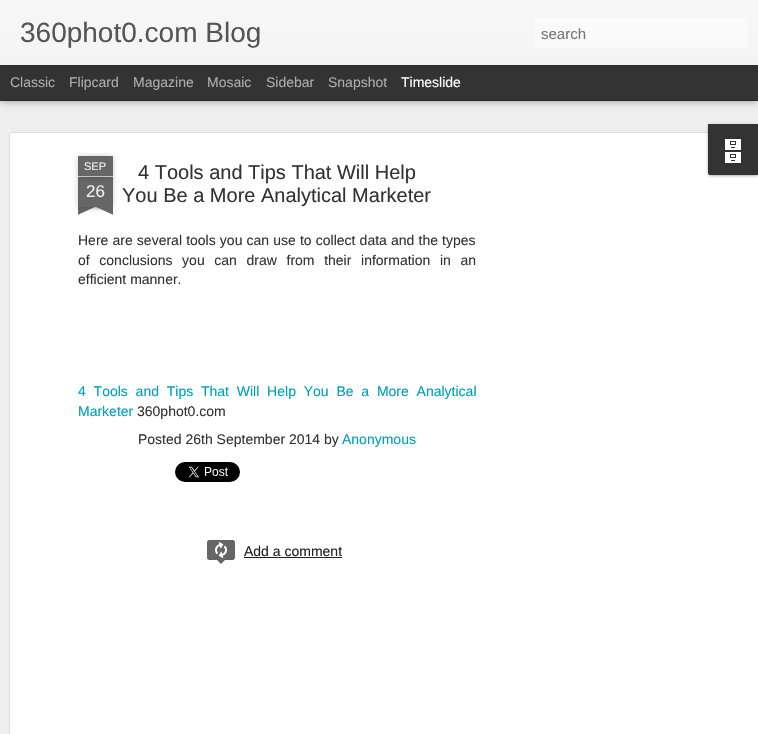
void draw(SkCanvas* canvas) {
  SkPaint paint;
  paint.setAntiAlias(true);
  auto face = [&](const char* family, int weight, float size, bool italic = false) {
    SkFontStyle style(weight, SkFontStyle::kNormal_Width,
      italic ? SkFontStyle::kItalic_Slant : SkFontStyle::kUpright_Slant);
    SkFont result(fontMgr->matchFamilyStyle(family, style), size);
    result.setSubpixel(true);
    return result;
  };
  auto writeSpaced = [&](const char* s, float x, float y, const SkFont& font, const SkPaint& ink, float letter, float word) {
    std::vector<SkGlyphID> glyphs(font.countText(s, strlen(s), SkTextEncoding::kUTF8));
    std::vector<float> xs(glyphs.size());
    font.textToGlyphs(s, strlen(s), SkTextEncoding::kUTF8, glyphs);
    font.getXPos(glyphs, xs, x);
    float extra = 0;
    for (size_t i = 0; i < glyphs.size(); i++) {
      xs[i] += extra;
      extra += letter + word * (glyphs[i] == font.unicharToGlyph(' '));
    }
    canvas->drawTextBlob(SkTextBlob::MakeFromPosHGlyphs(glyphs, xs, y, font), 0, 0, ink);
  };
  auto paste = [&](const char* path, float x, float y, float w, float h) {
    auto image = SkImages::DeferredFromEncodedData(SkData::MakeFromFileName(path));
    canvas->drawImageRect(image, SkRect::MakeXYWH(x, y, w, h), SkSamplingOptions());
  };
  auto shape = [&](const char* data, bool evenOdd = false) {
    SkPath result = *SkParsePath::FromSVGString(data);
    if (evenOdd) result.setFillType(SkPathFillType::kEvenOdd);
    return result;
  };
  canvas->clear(0xff333333);
  paint.setColor(0xffeeeeee);
  canvas->drawRect(SkRect::MakeXYWH(0, 101, 758, 633), paint);
  paint.setColor(0x80000000);
  paint.setMaskFilter(SkMaskFilter::MakeBlur(kNormal_SkBlurStyle, 4));
  canvas->drawRect(SkRect::MakeXYWH(0, 65, 758, 35), paint);
  paint.setMaskFilter(nullptr);
  paint.setColor(0xff333333);
  canvas->drawRect(SkRect::MakeXYWH(0, 65, 758, 35), paint);
  paint.setColor(0x4d000000);
  paint.setMaskFilter(SkMaskFilter::MakeBlur(kNormal_SkBlurStyle, 2.5f));
  canvas->drawRect(SkRect::MakeXYWH(0, 0, 758, 65), paint);
  paint.setMaskFilter(nullptr);
  {
    const SkColor colors[] = {0xfff7f7f7, 0xfff4f4f4};
    const float stops[] = {0, 1};
    const SkPoint ends[] = {{0, 0}, {0, 65}};
    paint.setShader(SkGradientShader::MakeLinear(ends, colors, stops, 2, SkTileMode::kClamp));
    paint.setAlpha(255);
  }
  canvas->drawRect(SkRect::MakeXYWH(0, 0, 758, 65), paint);
  paint.setShader(nullptr);
  paint.setColor(0xfffafafa);
  canvas->drawRoundRect(SkRect::MakeXYWH(534, 18, 214, 30), 3, 3, paint);
  paint.setColor(0xffffffff);
  canvas->drawRect(SkRect::MakeXYWH(8, 131, 750, 603), paint);
  paste("img/2.png", 8, 131, 700, 603);
  paint.setColor(0x4d000000);
  paint.setMaskFilter(SkMaskFilter::MakeBlur(kNormal_SkBlurStyle, 1.5f));
  canvas->drawRoundRect(SkRect::MakeXYWH(708, 125, 50, 51), 2, 2, paint);
  paint.setMaskFilter(nullptr);
  paint.setColor(0xff333333);
  canvas->drawPath(shape("M708 124H758V175H710C709 175 708 174 708 173Z"), paint);
  paste("img/1.png", 725, 139, 16, 24);
  paint.setColor(0x33000000);
  paint.setMaskFilter(SkMaskFilter::MakeBlur(kNormal_SkBlurStyle, 2.5f));
  canvas->drawRect(SkRect::MakeXYWH(78, 177, 35, 30), paint);
  paint.setMaskFilter(nullptr);
  paint.setColor(0xff666666);
  canvas->drawRect(SkRect::MakeXYWH(78, 177, 35, 30), paint);
  paint.setColor(0x33000000);
  paint.setMaskFilter(SkMaskFilter::MakeBlur(kNormal_SkBlurStyle, 2.5f));
  canvas->drawRoundRect(SkRect::MakeXYWH(78, 156, 35, 21), 1, 1, paint);
  paint.setMaskFilter(nullptr);
  paint.setColor(0xff666666);
  canvas->drawPath(shape("M79 156H112C112.5 156 113 156.5 113 157V177H78V157C78 156.5 78.5 156 79 156Z"), paint);
  paint.setColor(0xffc2c2c2);
  canvas->drawRect(SkRect::MakeXYWH(78, 176, 35, 1), paint);
  canvas->save();
  canvas->clipRect(SkRect::MakeXYWH(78, 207, 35, 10));
  paint.setColor(0x33000000);
  paint.setMaskFilter(SkMaskFilter::MakeBlur(kNormal_SkBlurStyle, 2.5f));
  canvas->drawRect(SkRect::MakeXYWH(69, 197, 50, 10), paint);
  paint.setMaskFilter(nullptr);
  canvas->restore();
  canvas->save();
  canvas->clipRect(SkRect::MakeXYWH(78, 207, 35, 10));
  paint.setColor(0xff666666);
  canvas->drawPath(shape("M69 208L115 187L119 196L73 217Z"), paint);
  canvas->restore();
  canvas->save();
  canvas->clipRect(SkRect::MakeXYWH(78, 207, 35, 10));
  paint.setColor(0x33000000);
  paint.setMaskFilter(SkMaskFilter::MakeBlur(kNormal_SkBlurStyle, 2.5f));
  canvas->drawRect(SkRect::MakeXYWH(72, 197, 50, 10), paint);
  paint.setMaskFilter(nullptr);
  canvas->restore();
  canvas->save();
  canvas->clipRect(SkRect::MakeXYWH(78, 207, 35, 10));
  paint.setColor(0xff666666);
  canvas->drawPath(shape("M76 187L122 208L118 217L72 196Z"), paint);
  canvas->restore();
  paste("img/3.png", 175, 462, 65, 20);
  canvas->drawRoundRect(SkRect::MakeXYWH(207, 540, 28, 20), 3, 3, paint);
  paste("img/4.png", 215, 542, 12, 16);
  paint.setStroke(true);
  paint.setStrokeWidth(1);
  canvas->drawRoundRect(SkRect::MakeXYWH(207.5f, 540.5f, 27, 19), 2.5f, 2.5f, paint);
  paint.setStroke(false);
  canvas->drawPath(shape("M216 559H226L221 564Z"), paint);
  paint.setColor(0xff222222);
  canvas->drawRect(SkRect::MakeXYWH(244, 557, 98, 1), paint);
  auto f0 = face("Liberation Sans", 400, 28);
  paint.setColor(0xff555555);
  canvas->drawString("360phot0.com Blog", 20, 42, f0, paint);
  auto f1 = face("Liberation Sans", 400, 15);
  paint.setColor(0xff757575);
  canvas->drawString("search", 541, 39, f1, paint);
  auto f2 = face("Liberation Sans", 400, 14);
  paint.setColor(0xffadadad);
  {
    const struct { const char* s; float x, y; } items[] = {
      {"Classic", 10, 87},
      {"Flipcard", 69, 87},
      {"Magazine", 133, 87},
      {"Mosaic", 207, 87},
      {"Sidebar", 266, 87},
      {"Snapshot", 328, 87},
    };
    for (auto [s, x, y] : items) {
      canvas->drawString(s, x, y, f2, paint);
    }
  }
  paint.setColor(0xffffffff);
  canvas->drawString("Timeslide", 401, 87, f2, paint);
  auto f3 = face("Liberation Sans", 400, 11);
  paint.setColor(0xffeeeeee);
  canvas->drawString("SEP", 84, 170, f3, paint);
  auto f4 = face("Liberation Sans", 400, 17);
  canvas->drawString("26", 86, 197, f4, paint);
  auto f5 = face("Liberation Sans", 400, 20);
  paint.setColor(0xff333333);
  canvas->drawString("4 Tools and Tips That Will Help", 138, 179, f5, paint);
  canvas->drawString("You Be a More Analytical Marketer", 122, 202, f5, paint);
  writeSpaced("Here are several tools you can use to collect data and the types", 78, 245, f2, paint, 0, 0.25f);
  writeSpaced("of conclusions you can draw from their information in an", 78, 265, f2, paint, 0, 5.75f);
  canvas->drawString("efficient manner.", 78, 284, f2, paint);
  paint.setColor(0xff009eb8);
  writeSpaced("4 Tools and Tips That Will Help You Be a More Analytical", 78, 396, f2, paint, 0, 3.9f);
  canvas->drawString("Marketer", 78, 416, f2, paint);
  paint.setColor(0xff333333);
  canvas->drawString("360phot0.com", 137, 416, f2, paint);
  canvas->drawString("Posted 26th September 2014 by", 138, 444, f2, paint);
  paint.setColor(0xff009eb8);
  canvas->drawString("Anonymous", 342, 444, f2, paint);
  paint.setColor(0xff222222);
  canvas->drawString("Add a comment", 244, 556, f2, paint);
}
